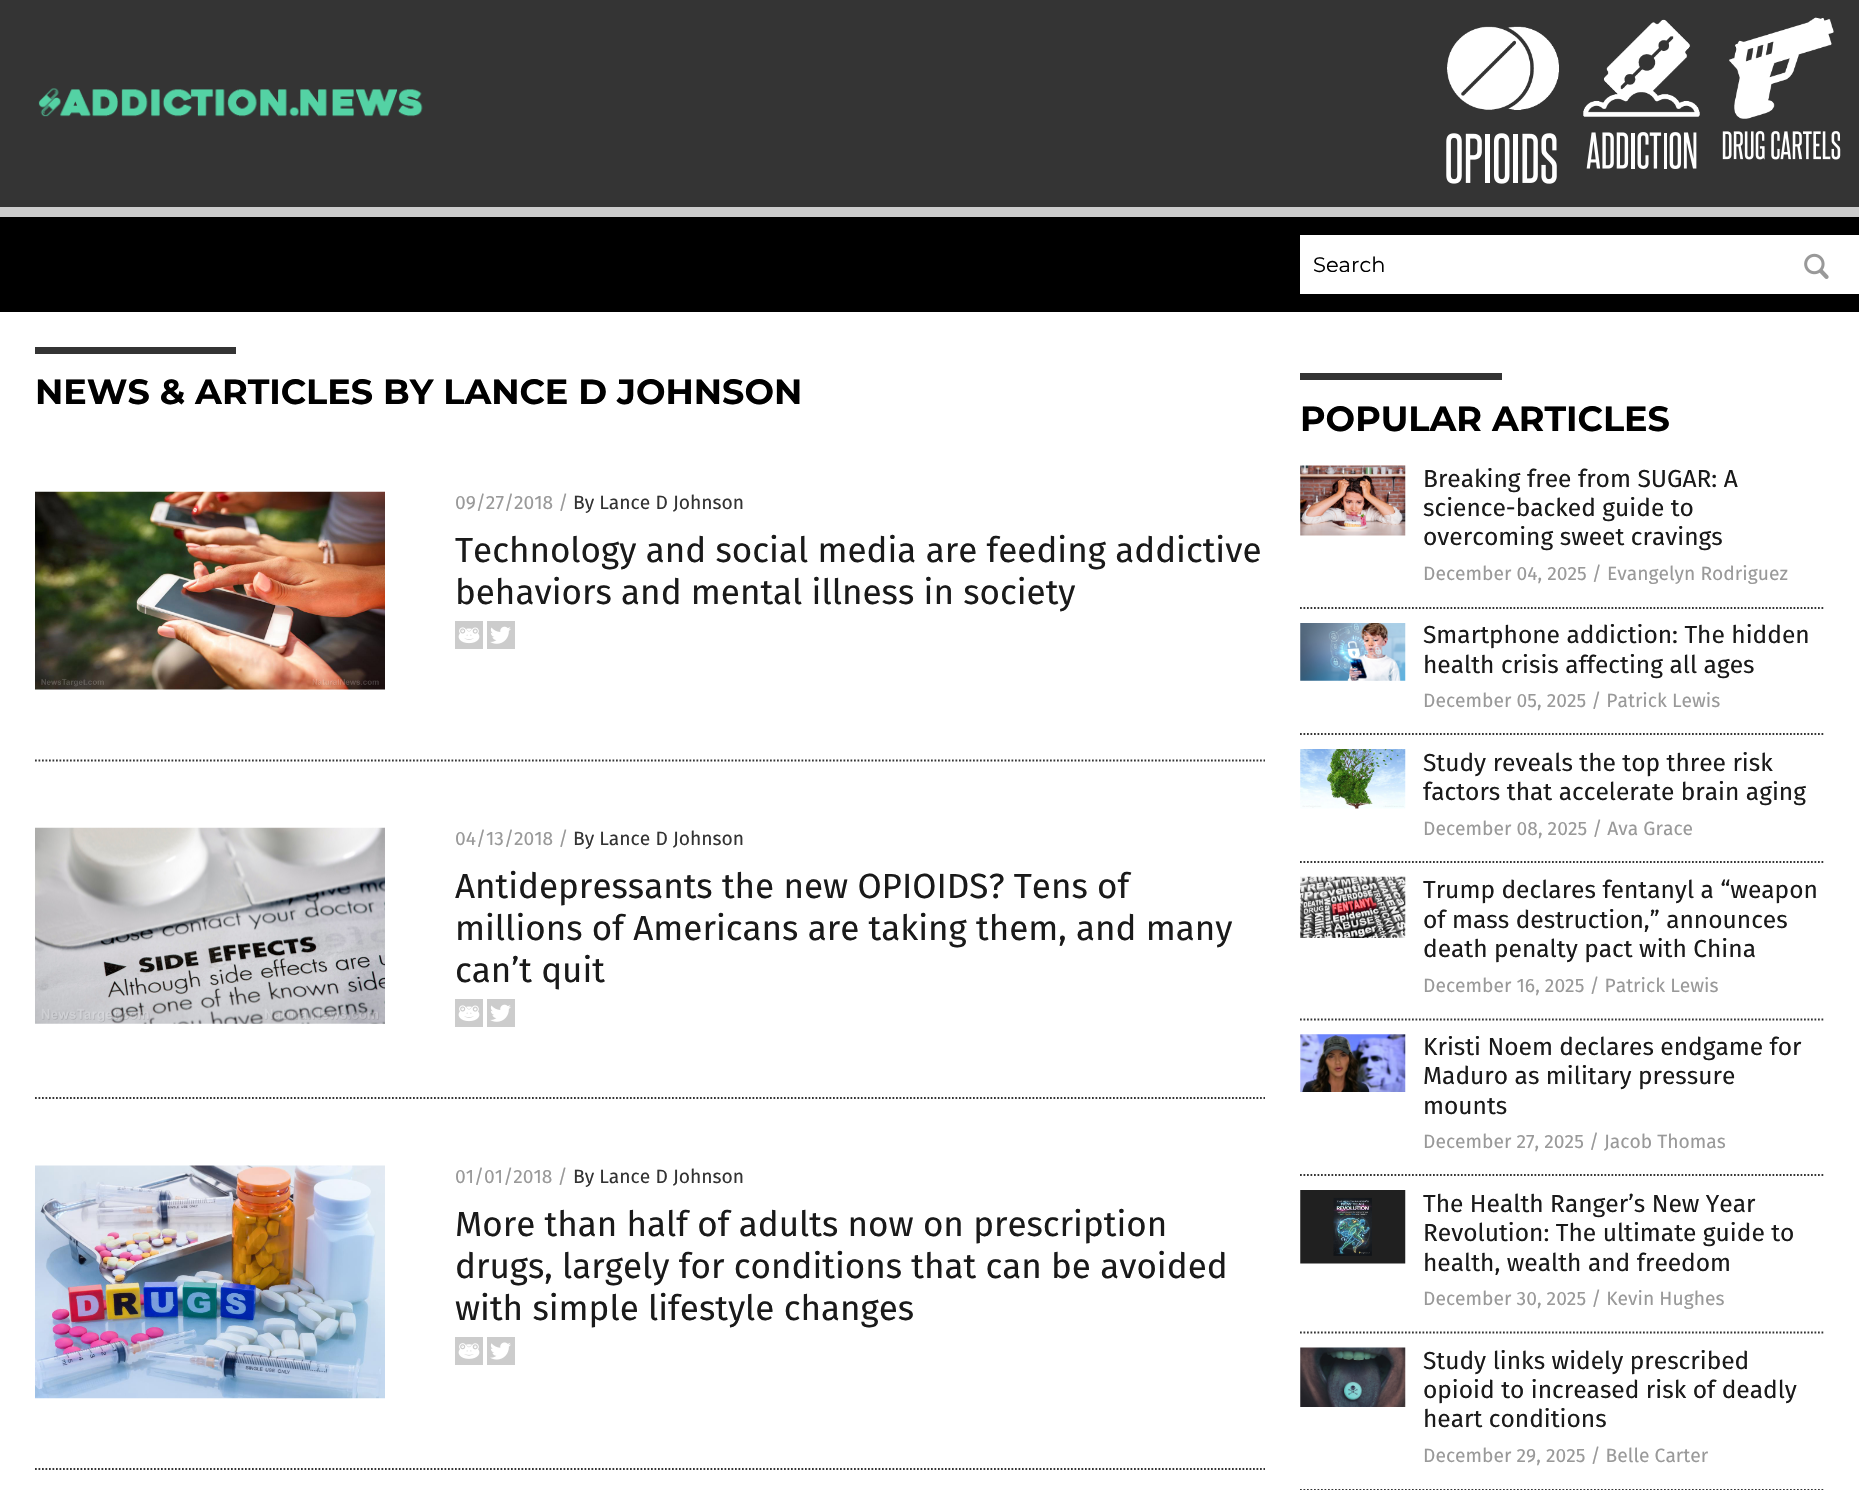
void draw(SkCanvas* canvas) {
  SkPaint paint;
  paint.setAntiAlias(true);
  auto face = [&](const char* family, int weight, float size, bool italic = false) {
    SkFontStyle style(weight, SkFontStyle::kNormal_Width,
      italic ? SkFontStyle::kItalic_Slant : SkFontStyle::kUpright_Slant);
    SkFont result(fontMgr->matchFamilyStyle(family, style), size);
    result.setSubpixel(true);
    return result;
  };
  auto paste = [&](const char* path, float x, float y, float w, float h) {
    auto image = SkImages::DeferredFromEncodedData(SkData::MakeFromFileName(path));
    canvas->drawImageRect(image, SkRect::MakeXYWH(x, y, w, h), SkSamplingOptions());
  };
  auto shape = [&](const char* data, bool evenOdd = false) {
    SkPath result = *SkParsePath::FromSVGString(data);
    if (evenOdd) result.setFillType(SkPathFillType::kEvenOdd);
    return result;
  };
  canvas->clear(0xff000000);
  paint.setColor(0xff343434);
  canvas->drawRect(SkRect::MakeXYWH(0, 0, 1859, 207), paint);
  paste("img/1.png", 38, 88, 385, 29);
  paste("img/2.png", 1447, 26, 112, 84);
  paste("img/3.png", 1446, 133, 111, 51);
  paste("img/4.png", 1583, 19, 117, 98);
  paste("img/5.png", 1586, 132, 111, 37);
  paste("img/6.png", 1729, 17, 105, 102);
  paste("img/7.png", 1722, 131, 119, 29);
  paint.setColor(0xffcccccc);
  canvas->drawRect(SkRect::MakeXYWH(0, 207, 1859, 10), paint);
  paint.setColor(0xffffffff);
  canvas->drawRect(SkRect::MakeXYWH(1300, 235, 559, 59), paint);
  paste("img/8.png", 1804, 253, 25, 26);
  canvas->drawRect(SkRect::MakeXYWH(0, 312, 1859, 1178), paint);
  paint.setColor(0xff343434);
  canvas->drawRect(SkRect::MakeXYWH(35, 347, 201, 7), paint);
  paint.setStroke(true);
  paint.setStrokeWidth(1.8f);
  paint.setPathEffect(SkDashPathEffect::Make({{1.75f, 1.75f}}, 0));
  canvas->drawPath(shape("M35 760.5H1265"), paint);
  paint.setPathEffect(nullptr);
  paste("img/9.png", 35, 491, 350, 199);
  paste("img/10.png", 455, 621, 28, 28);
  paste("img/11.png", 487, 621, 28, 28);
  paint.setPathEffect(SkDashPathEffect::Make({{1.75f, 1.75f}}, 0));
  canvas->drawPath(shape("M35 1098H1265"), paint);
  paint.setPathEffect(nullptr);
  paste("img/12.png", 35, 827, 350, 197);
  paste("img/10.png", 455, 999, 28, 28);
  paste("img/11.png", 487, 999, 28, 28);
  paint.setPathEffect(SkDashPathEffect::Make({{1.75f, 1.75f}}, 0));
  canvas->drawPath(shape("M35 1469H1265"), paint);
  paint.setPathEffect(nullptr);
  paste("img/13.png", 35, 1165, 350, 234);
  paste("img/14.png", 455, 1337, 28, 28);
  paste("img/15.png", 487, 1337, 28, 28);
  paint.setStroke(false);
  canvas->drawRect(SkRect::MakeXYWH(1300, 373, 202, 7), paint);
  paint.setStroke(true);
  paint.setPathEffect(SkDashPathEffect::Make({{1.75f, 1.75f}}, 0));
  canvas->drawPath(shape("M1300 608H1825"), paint);
  paint.setPathEffect(nullptr);
  paste("img/16.png", 1300, 465, 106, 71);
  paint.setPathEffect(SkDashPathEffect::Make({{1.75f, 1.75f}}, 0));
  canvas->drawPath(shape("M1300 734H1825"), paint);
  paint.setPathEffect(nullptr);
  paste("img/17.png", 1300, 623, 106, 58);
  paint.setPathEffect(SkDashPathEffect::Make({{1.75f, 1.75f}}, 0));
  canvas->drawPath(shape("M1300 862H1825"), paint);
  paint.setPathEffect(nullptr);
  paste("img/18.png", 1300, 749, 106, 60);
  paint.setPathEffect(SkDashPathEffect::Make({{1.75f, 1.75f}}, 0));
  canvas->drawPath(shape("M1300 1019.5H1825"), paint);
  paint.setPathEffect(nullptr);
  paste("img/19.png", 1300, 876, 106, 62);
  paint.setPathEffect(SkDashPathEffect::Make({{1.75f, 1.75f}}, 0));
  canvas->drawPath(shape("M1300 1175H1825"), paint);
  paint.setPathEffect(nullptr);
  paste("img/20.png", 1300, 1034, 106, 58);
  paint.setPathEffect(SkDashPathEffect::Make({{1.75f, 1.75f}}, 0));
  canvas->drawPath(shape("M1300 1332.5H1825"), paint);
  paint.setPathEffect(nullptr);
  paste("img/21.png", 1300, 1190, 106, 74);
  paint.setPathEffect(SkDashPathEffect::Make({{1.75f, 1.75f}}, 0));
  canvas->drawPath(shape("M1300 1490H1825"), paint);
  paint.setPathEffect(nullptr);
  paste("img/22.png", 1300, 1347, 106, 60);
  auto f0 = face("Montserrat", 400, 21);
  paint.setStroke(false);
  paint.setColor(0xff000000);
  canvas->drawString("Search", 1313, 272, f0, paint);
  auto f1 = face("Montserrat", 700, 35);
  canvas->drawString("NEWS & ARTICLES BY LANCE D JOHNSON", 35, 404, f1, paint);
  auto f2 = face("Fira Sans", 400, 19.25f);
  paint.setColor(0xff999999);
  canvas->drawString("09/27/2018 /", 455, 509, f2, paint);
  paint.setColor(0xff333333);
  canvas->drawString("By Lance D Johnson", 573, 509, f2, paint);
  auto f3 = face("Fira Sans", 400, 35);
  paint.setColor(0xff1a1a1a);
  canvas->drawString("Technology and social media are feeding addictive", 455, 562, f3, paint);
  canvas->drawString("behaviors and mental illness in society", 455, 604, f3, paint);
  paint.setColor(0xff999999);
  canvas->drawString("04/13/2018 /", 455, 845, f2, paint);
  paint.setColor(0xff333333);
  canvas->drawString("By Lance D Johnson", 573, 845, f2, paint);
  paint.setColor(0xff1a1a1a);
  {
    const struct { const char* s; float x, y; } items[] = {
      {"Antidepressants the new OPIOIDS? Tens of", 455, 898},
      {"millions of Americans are taking them, and many", 455, 940},
      {"can’t quit", 455, 982},
    };
    for (auto [s, x, y] : items) {
      canvas->drawString(s, x, y, f3, paint);
    }
  }
  paint.setColor(0xff999999);
  canvas->drawString("01/01/2018 /", 455, 1183, f2, paint);
  paint.setColor(0xff333333);
  canvas->drawString("By Lance D Johnson", 573, 1183, f2, paint);
  paint.setColor(0xff1a1a1a);
  {
    const struct { const char* s; float x, y; } items[] = {
      {"More than half of adults now on prescription", 455, 1236},
      {"drugs, largely for conditions that can be avoided", 455, 1278},
      {"with simple lifestyle changes", 455, 1320},
    };
    for (auto [s, x, y] : items) {
      canvas->drawString(s, x, y, f3, paint);
    }
  }
  paint.setColor(0xff000000);
  canvas->drawString("POPULAR ARTICLES", 1300, 431, f1, paint);
  auto f4 = face("Fira Sans", 400, 24.5f);
  paint.setColor(0xff1a1a1a);
  {
    const struct { const char* s; float x, y; } items[] = {
      {"Breaking free from SUGAR: A", 1423, 487},
      {"science-backed guide to", 1423, 516},
      {"overcoming sweet cravings", 1423, 545},
    };
    for (auto [s, x, y] : items) {
      canvas->drawString(s, x, y, f4, paint);
    }
  }
  paint.setColor(0xff999999);
  canvas->drawString("December 04, 2025 / Evangelyn Rodriguez", 1423, 580, f2, paint);
  paint.setColor(0xff1a1a1a);
  canvas->drawString("Smartphone addiction: The hidden", 1423, 643, f4, paint);
  canvas->drawString("health crisis affecting all ages", 1423, 673, f4, paint);
  paint.setColor(0xff999999);
  canvas->drawString("December 05, 2025 / Patrick Lewis", 1423, 707, f2, paint);
  paint.setColor(0xff1a1a1a);
  canvas->drawString("Study reveals the top three risk", 1423, 771, f4, paint);
  canvas->drawString("factors that accelerate brain aging", 1423, 800, f4, paint);
  paint.setColor(0xff999999);
  canvas->drawString("December 08, 2025 / Ava Grace", 1423, 835, f2, paint);
  paint.setColor(0xff1a1a1a);
  {
    const struct { const char* s; float x, y; } items[] = {
      {"Trump declares fentanyl a “weapon", 1423, 898},
      {"of mass destruction,” announces", 1423, 928},
      {"death penalty pact with China", 1423, 957},
    };
    for (auto [s, x, y] : items) {
      canvas->drawString(s, x, y, f4, paint);
    }
  }
  paint.setColor(0xff999999);
  canvas->drawString("December 16, 2025 / Patrick Lewis", 1423, 992, f2, paint);
  paint.setColor(0xff1a1a1a);
  {
    const struct { const char* s; float x, y; } items[] = {
      {"Kristi Noem declares endgame for", 1423, 1055},
      {"Maduro as military pressure", 1423, 1084},
      {"mounts", 1423, 1114},
    };
    for (auto [s, x, y] : items) {
      canvas->drawString(s, x, y, f4, paint);
    }
  }
  paint.setColor(0xff999999);
  canvas->drawString("December 27, 2025 / Jacob Thomas", 1423, 1148, f2, paint);
  paint.setColor(0xff1a1a1a);
  {
    const struct { const char* s; float x, y; } items[] = {
      {"The Health Ranger’s New Year", 1423, 1212},
      {"Revolution: The ultimate guide to", 1423, 1241},
      {"health, wealth and freedom", 1423, 1271},
    };
    for (auto [s, x, y] : items) {
      canvas->drawString(s, x, y, f4, paint);
    }
  }
  paint.setColor(0xff999999);
  canvas->drawString("December 30, 2025 / Kevin Hughes", 1423, 1305, f2, paint);
  paint.setColor(0xff1a1a1a);
  {
    const struct { const char* s; float x, y; } items[] = {
      {"Study links widely prescribed", 1423, 1369},
      {"opioid to increased risk of deadly", 1423, 1398},
      {"heart conditions", 1423, 1427},
    };
    for (auto [s, x, y] : items) {
      canvas->drawString(s, x, y, f4, paint);
    }
  }
  paint.setColor(0xff999999);
  canvas->drawString("December 29, 2025 / Belle Carter", 1423, 1462, f2, paint);
}
